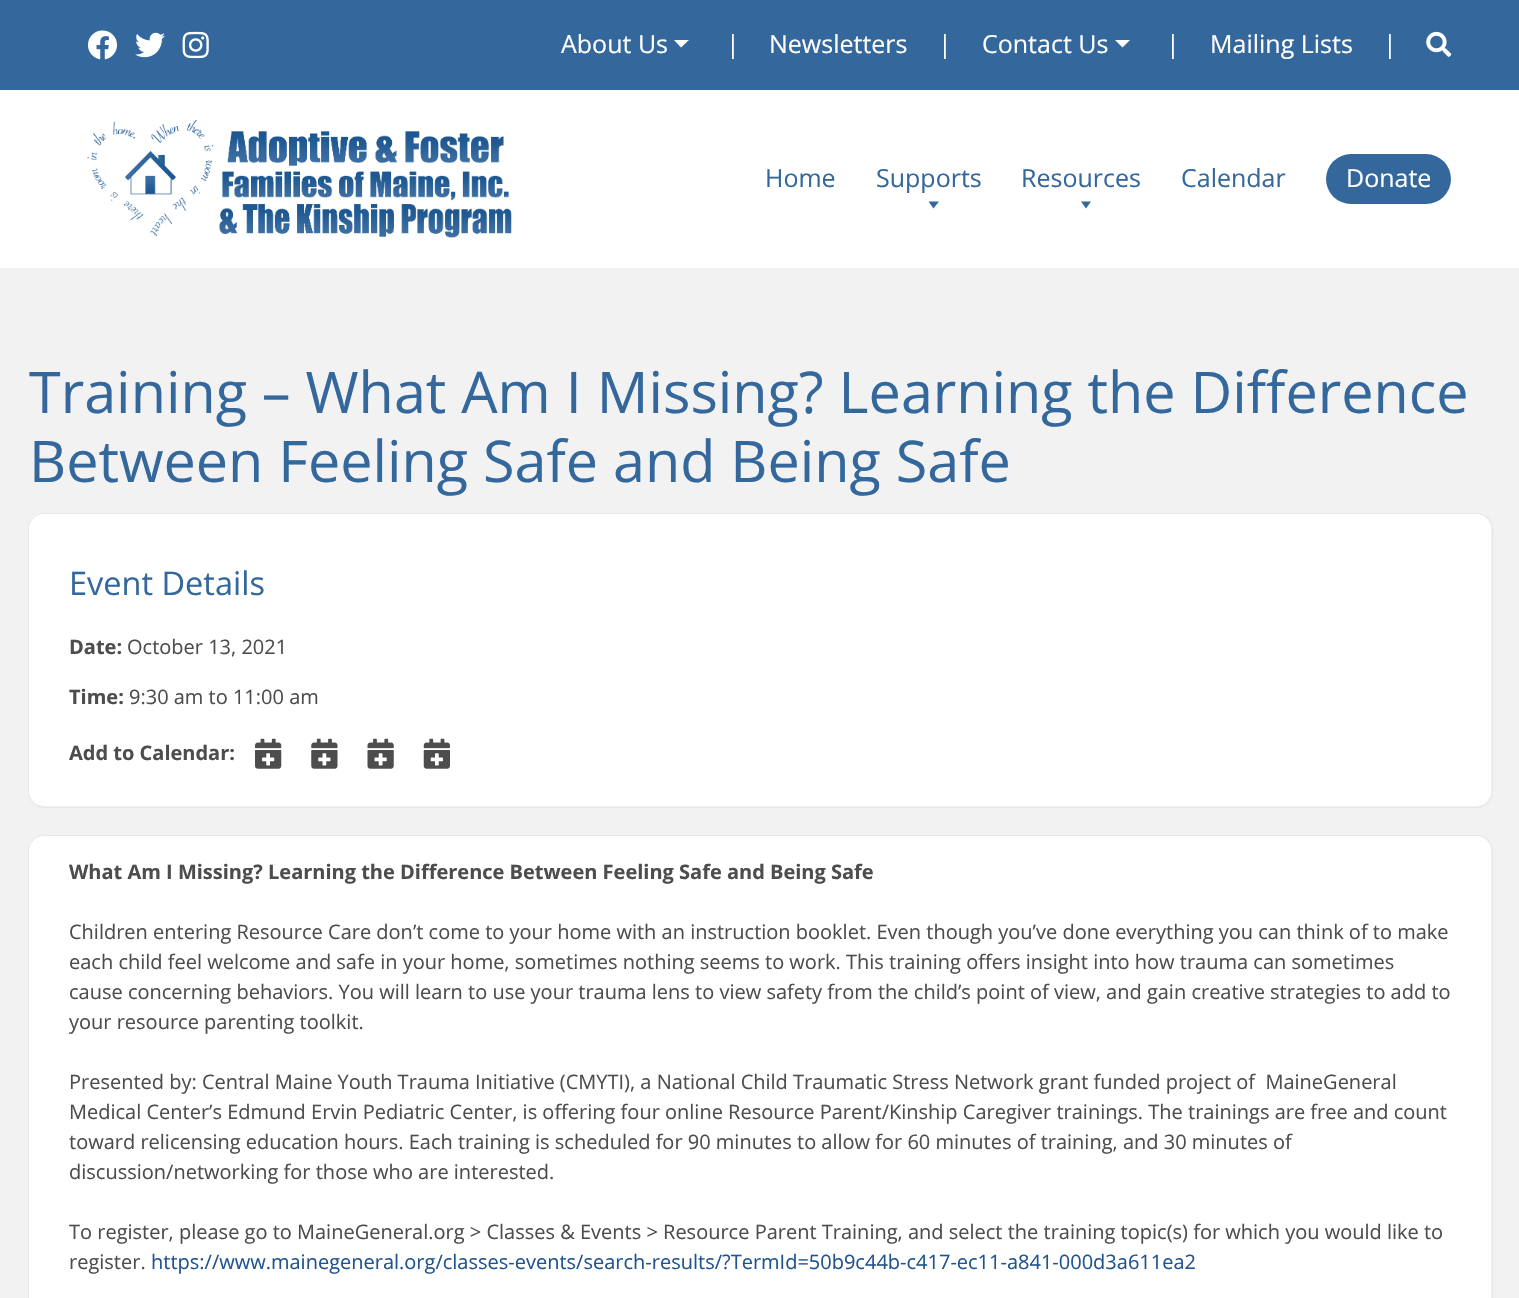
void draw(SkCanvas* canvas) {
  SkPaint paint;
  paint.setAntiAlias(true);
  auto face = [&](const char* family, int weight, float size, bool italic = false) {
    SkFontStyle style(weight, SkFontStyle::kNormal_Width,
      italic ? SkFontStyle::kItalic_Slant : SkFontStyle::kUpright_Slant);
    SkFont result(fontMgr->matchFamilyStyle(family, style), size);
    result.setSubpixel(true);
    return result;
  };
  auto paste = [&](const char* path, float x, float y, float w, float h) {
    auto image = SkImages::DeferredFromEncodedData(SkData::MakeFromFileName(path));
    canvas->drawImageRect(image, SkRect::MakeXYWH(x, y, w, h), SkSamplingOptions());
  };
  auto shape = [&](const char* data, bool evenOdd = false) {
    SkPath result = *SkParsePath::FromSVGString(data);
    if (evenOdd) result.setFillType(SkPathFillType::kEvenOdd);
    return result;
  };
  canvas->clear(0xfff2f2f2);
  paint.setColor(0xff34689d);
  canvas->drawRect(SkRect::MakeXYWH(0, 0, 1519, 90), paint);
  paste("img/1.png", 88, 30, 29, 30);
  paste("img/2.png", 135, 32, 30, 26);
  paste("img/3.png", 182, 31, 27, 28);
  paint.setColor(0xffffffff);
  canvas->drawPath(shape("M674 40H689L681 47.5Z"), paint);
  canvas->drawPath(shape("M1115 40H1130L1122.5 47.5Z"), paint);
  paste("img/4.png", 1426, 31, 26, 26);
  canvas->drawRect(SkRect::MakeXYWH(0, 90, 1519, 178), paint);
  paste("img/5.png", 87, 120, 425, 118);
  paint.setColor(0xff34689d);
  canvas->drawPath(shape("M939 201.5L933.5 208.5L928.5 201.5Z"), paint);
  canvas->drawPath(shape("M1091 201.5L1086 208.5L1081 201.5Z"), paint);
  canvas->drawRoundRect(SkRect::MakeXYWH(1326, 154, 125, 50), 25, 25, paint);
  paint.setStroke(true);
  paint.setStrokeWidth(1);
  paint.setColor(0xffe5e6e8);
  canvas->drawRoundRect(SkRect::MakeXYWH(28.5f, 513.5f, 1464, 294), 15.5f, 15.5f, paint);
  paint.setStroke(false);
  paint.setColor(0xffffffff);
  canvas->drawRoundRect(SkRect::MakeXYWH(29, 514, 1462, 292), 15, 15, paint);
  paste("img/6.png", 255, 738, 27, 31);
  paste("img/7.png", 311, 738, 27, 31);
  paste("img/8.png", 367, 738, 27, 31);
  paste("img/9.png", 423, 738, 27, 31);
  paint.setStroke(true);
  paint.setColor(0xffe5e6e8);
  canvas->drawRoundRect(SkRect::MakeXYWH(28.5f, 835.5f, 1464, 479), 15.5f, 15.5f, paint);
  paint.setStroke(false);
  paint.setColor(0xffffffff);
  canvas->drawRoundRect(SkRect::MakeXYWH(29, 836, 1462, 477), 15, 15, paint);
  auto f0 = face("Open Sans", 400, 25);
  {
    const struct { const char* s; float x, y; } items[] = {
      {"About Us", 561, 53},
      {"|", 726, 53},
      {"Newsletters", 769, 53},
      {"|", 938, 53},
      {"Contact Us", 982, 53},
      {"|", 1166, 53},
      {"Mailing Lists", 1210, 53},
      {"|", 1383, 53},
    };
    for (auto [s, x, y] : items) {
      canvas->drawString(s, x, y, f0, paint);
    }
  }
  paint.setColor(0xff34689d);
  {
    const struct { const char* s; float x, y; } items[] = {
      {"Home", 765, 187},
      {"Supports", 876, 187},
      {"Resources", 1021, 187},
      {"Calendar", 1181, 187},
    };
    for (auto [s, x, y] : items) {
      canvas->drawString(s, x, y, f0, paint);
    }
  }
  paint.setColor(0xffffffff);
  canvas->drawString("Donate", 1346, 187, f0, paint);
  auto f1 = face("Open Sans", 400, 57.5f);
  paint.setColor(0xff34689d);
  canvas->drawString("Training – What Am I Missing? Learning the Difference", 29, 413, f1, paint);
  canvas->drawString("Between Feeling Safe and Being Safe", 29, 482, f1, paint);
  auto f2 = face("Open Sans", 400, 32.5f);
  canvas->drawString("Event Details", 69, 595, f2, paint);
  auto f3 = face("Open Sans", 700, 20);
  paint.setColor(0xff4d4d4d);
  canvas->drawString("Date:", 69, 654, f3, paint);
  auto f4 = face("Open Sans", 400, 20);
  canvas->drawString("October 13, 2021", 127, 654, f4, paint);
  canvas->drawString("Time:", 69, 704, f3, paint);
  canvas->drawString("9:30 am to 11:00 am", 129, 704, f4, paint);
  canvas->drawString("Add to Calendar:", 69, 760, f3, paint);
  canvas->drawString("What Am I Missing? Learning the Difference Between Feeling Safe and Being Safe", 69, 879, f3, paint);
  {
    const struct { const char* s; float x, y; } items[] = {
      {"Children entering Resource Care don’t come to your home with an instruction booklet. Even though you’ve done everything you can think of to make", 69, 939},
      {"each child feel welcome and safe in your home, sometimes nothing seems to work. This training offers insight into how trauma can sometimes", 69, 969},
      {"cause concerning behaviors. You will learn to use your trauma lens to view safety from the child’s point of view, and gain creative strategies to add to", 69, 999},
      {"your resource parenting toolkit.", 69, 1029},
      {"Presented by: Central Maine Youth Trauma Initiative (CMYTI), a National Child Traumatic Stress Network grant funded project of  MaineGeneral", 69, 1089},
      {"Medical Center’s Edmund Ervin Pediatric Center, is offering four online Resource Parent/Kinship Caregiver trainings. The trainings are free and count", 69, 1119},
      {"toward relicensing education hours. Each training is scheduled for 90 minutes to allow for 60 minutes of training, and 30 minutes of", 69, 1149},
      {"discussion/networking for those who are interested.", 69, 1179},
      {"To register, please go to MaineGeneral.org > Classes & Events > Resource Parent Training, and select the training topic(s) for which you would like to", 69, 1239},
      {"register.", 69, 1269},
    };
    for (auto [s, x, y] : items) {
      canvas->drawString(s, x, y, f4, paint);
    }
  }
  paint.setColor(0xff20548e);
  canvas->drawString("https://www.mainegeneral.org/classes-events/search-results/?TermId=50b9c44b-c417-ec11-a841-000d3a611ea2", 151, 1269, f4, paint);
}
